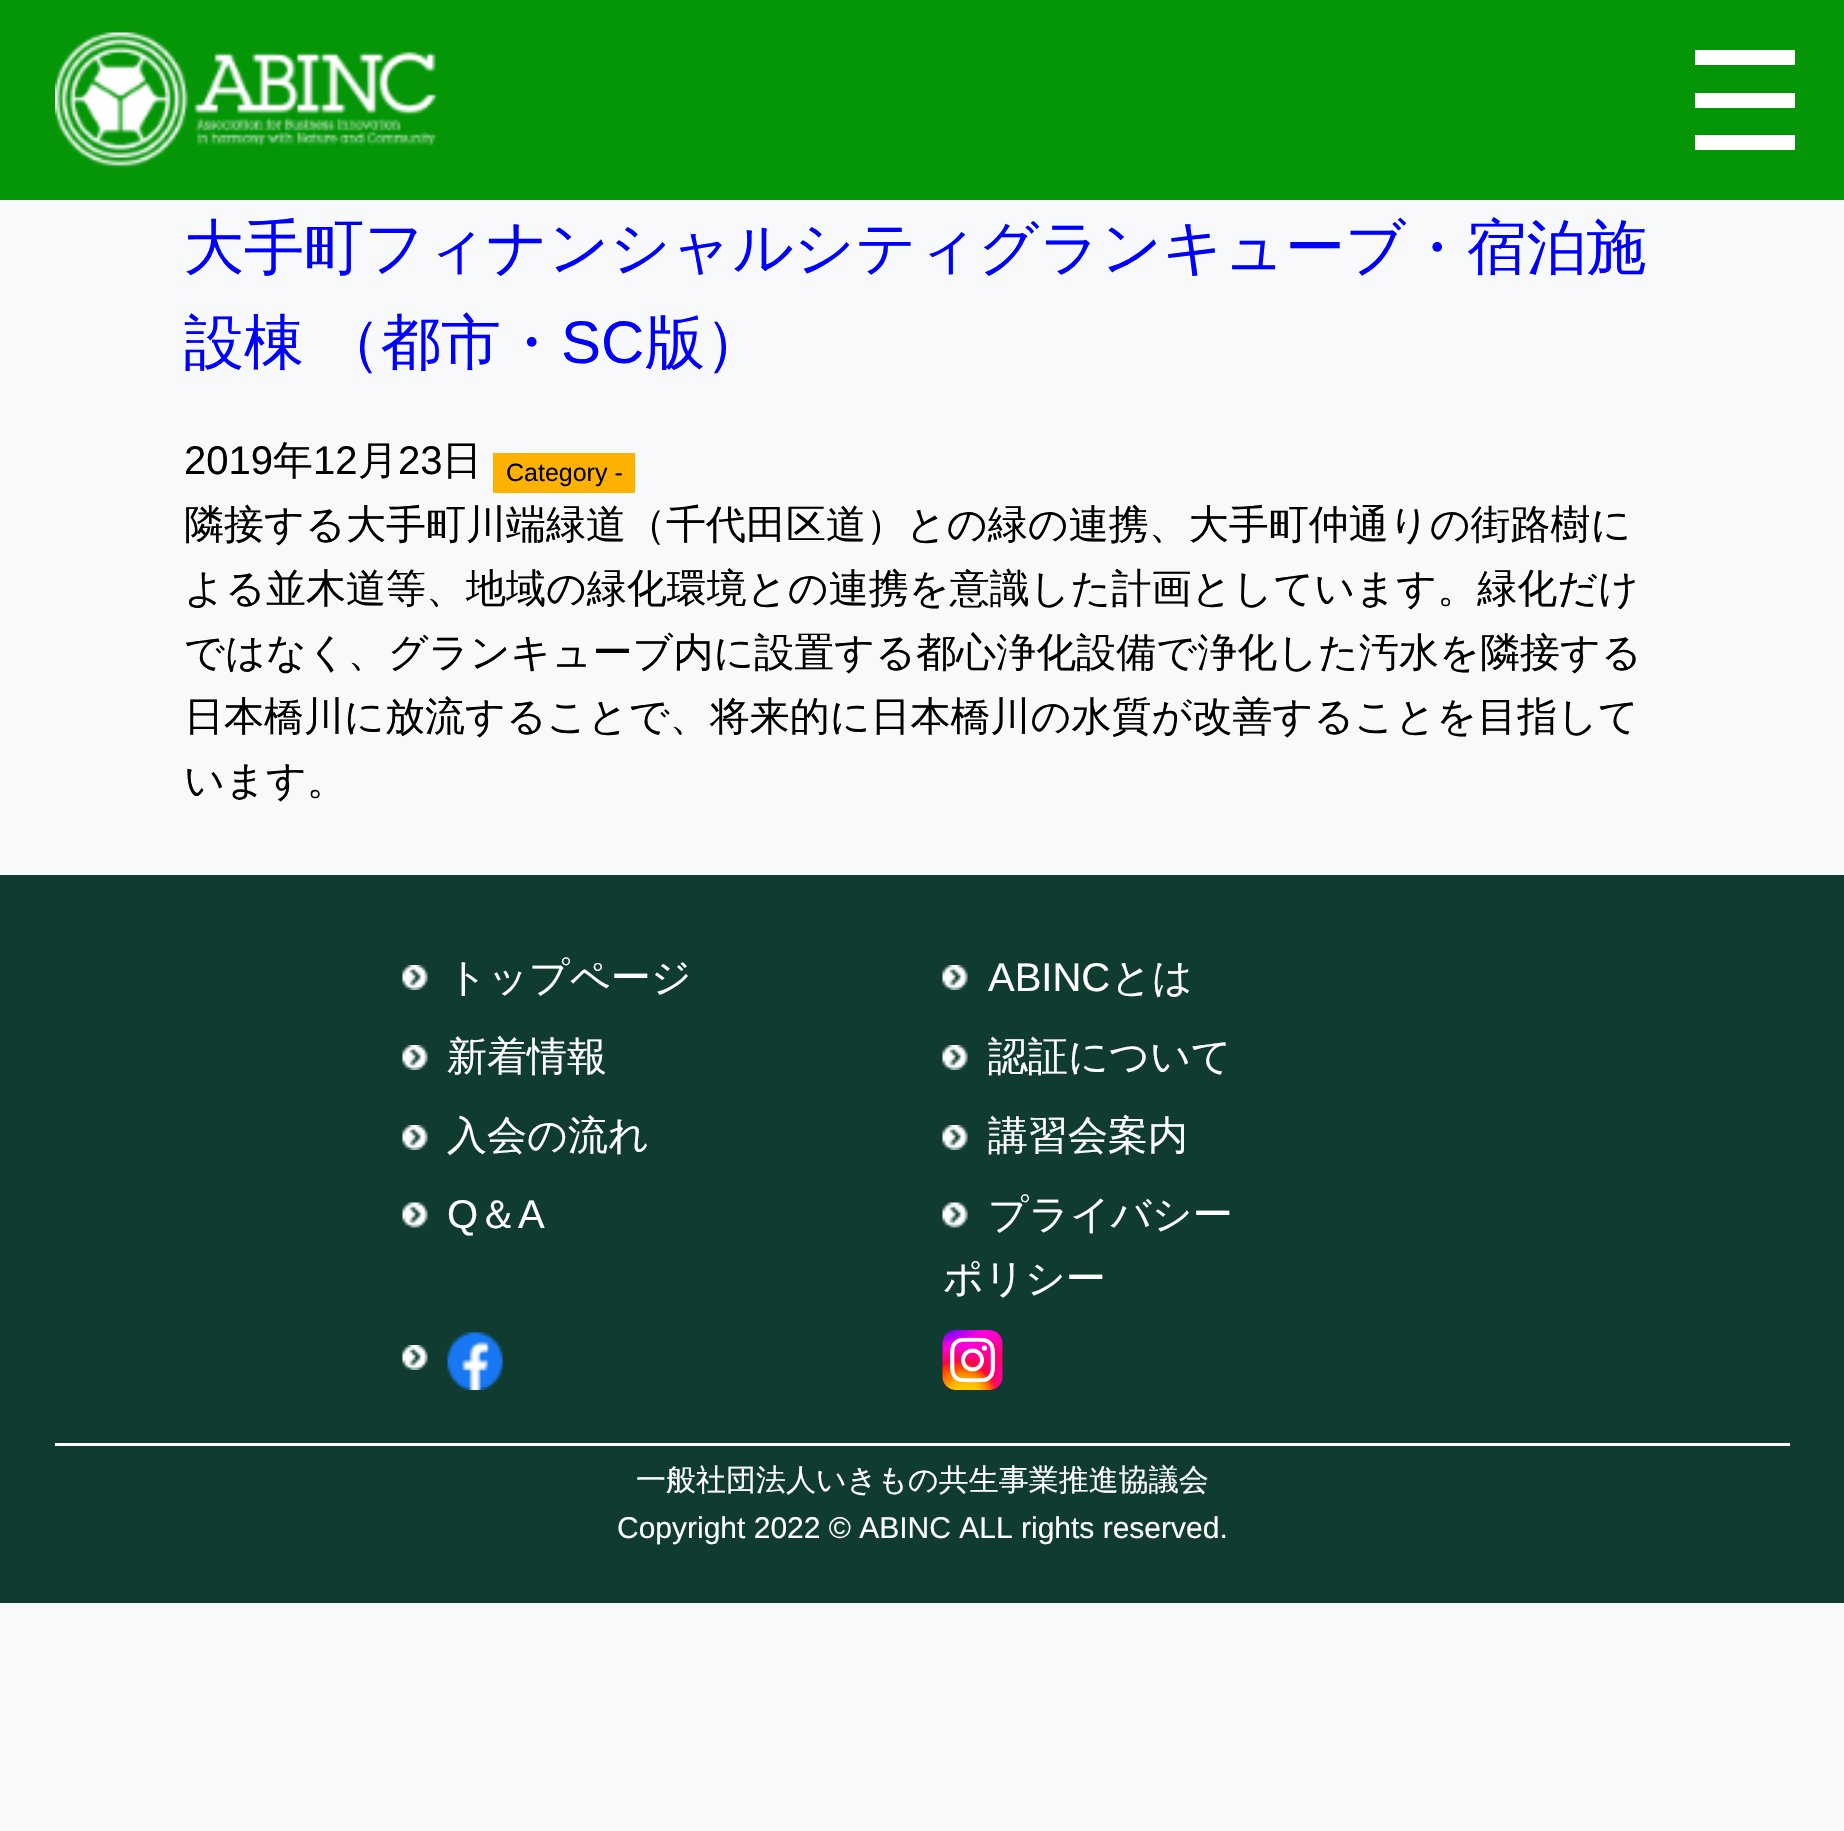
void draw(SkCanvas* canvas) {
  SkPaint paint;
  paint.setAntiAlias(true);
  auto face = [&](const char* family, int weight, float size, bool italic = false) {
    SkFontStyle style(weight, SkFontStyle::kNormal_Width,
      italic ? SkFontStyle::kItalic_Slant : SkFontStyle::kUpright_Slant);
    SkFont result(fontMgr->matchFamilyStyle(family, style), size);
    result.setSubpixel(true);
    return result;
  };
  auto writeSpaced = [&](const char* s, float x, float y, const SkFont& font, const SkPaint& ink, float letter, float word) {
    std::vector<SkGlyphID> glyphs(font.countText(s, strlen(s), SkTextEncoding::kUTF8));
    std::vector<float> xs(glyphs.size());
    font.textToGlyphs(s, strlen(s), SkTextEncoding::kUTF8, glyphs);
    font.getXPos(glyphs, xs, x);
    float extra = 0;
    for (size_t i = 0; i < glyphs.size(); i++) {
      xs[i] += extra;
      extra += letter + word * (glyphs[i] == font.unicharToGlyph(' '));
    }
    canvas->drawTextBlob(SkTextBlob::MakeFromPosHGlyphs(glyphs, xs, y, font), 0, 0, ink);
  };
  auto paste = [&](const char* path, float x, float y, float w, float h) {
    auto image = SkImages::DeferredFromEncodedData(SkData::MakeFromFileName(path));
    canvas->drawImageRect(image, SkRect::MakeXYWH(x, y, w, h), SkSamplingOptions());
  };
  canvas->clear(0xfff8f9fb);
  paint.setColor(0xff049607);
  canvas->drawRect(SkRect::MakeXYWH(0, 0, 1844, 200), paint);
  paste("img/1.png", 55, 32, 383, 136);
  {
    const struct { float x, y, w, h; SkColor color; } items[] = {
      {1695, 50, 100, 15, 0xffffffff},
      {1695, 93, 100, 15, 0xffffffff},
      {1695, 135, 100, 15, 0xffffffff},
      {493, 453, 142, 40, 0xffffb100},
      {0, 875, 1844, 728, 0xff103b31},
    };
    for (auto [x, y, w, h, color] : items) {
      paint.setColor(color);
      canvas->drawRect(SkRect::MakeXYWH(x, y, w, h), paint);
    }
  }
  paste("img/2.png", 402, 965, 26, 25);
  paste("img/2.png", 942, 965, 26, 25);
  paste("img/2.png", 402, 1045, 26, 25);
  paste("img/2.png", 942, 1045, 26, 25);
  paste("img/2.png", 402, 1125, 26, 25);
  paste("img/2.png", 942, 1125, 26, 25);
  paste("img/3.png", 402, 1202, 26, 26);
  paste("img/3.png", 942, 1202, 26, 26);
  paste("img/2.png", 402, 1345, 26, 25);
  paste("img/4.png", 447, 1332, 56, 58);
  paste("img/5.png", 942, 1330, 61, 60);
  paint.setColor(0xffffffff);
  canvas->drawRect(SkRect::MakeXYWH(55, 1443, 1735, 3), paint);
  auto f0 = face("WenQuanYi Zen Hei", 500, 60);
  paint.setColor(0xff0000ff);
  canvas->drawString("大手町フィナンシャルシティグランキューブ・宿泊施", 184, 268, f0, paint);
  writeSpaced("設棟 （都市・", 184, 363, f0, paint, 0, -1);
  auto f1 = face("Liberation Sans", 400, 60);
  canvas->drawString("SC", 561, 363, f1, paint);
  canvas->drawString("版）", 645, 363, f0, paint);
  auto f2 = face("Liberation Sans", 400, 40);
  paint.setColor(0xff000000);
  canvas->drawString("2019", 184, 474, f2, paint);
  auto f3 = face("WenQuanYi Zen Hei", 500, 40);
  canvas->drawString("年", 273, 474, f3, paint);
  canvas->drawString("12", 313, 474, f2, paint);
  canvas->drawString("月", 358, 474, f3, paint);
  canvas->drawString("23", 398, 474, f2, paint);
  canvas->drawString("日", 442, 474, f3, paint);
  auto f4 = face("Liberation Sans", 400, 25);
  canvas->drawString("Category -", 506, 481, f4, paint);
  {
    const struct { const char* s; float x, y; } items[] = {
      {"隣接する大手町川端緑道（千代田区道）との緑の連携、大手町仲通りの街路樹に", 184, 538},
      {"よる並木道等、地域の緑化環境との連携を意識した計画としています。緑化だけ", 184, 602},
      {"ではなく、グランキューブ内に設置する都心浄化設備で浄化した汚水を隣接する", 184, 666},
      {"日本橋川に放流することで、将来的に日本橋川の水質が改善することを目指して", 184, 730},
      {"います。", 184, 794},
    };
    for (auto [s, x, y] : items) {
      canvas->drawString(s, x, y, f3, paint);
    }
  }
  paint.setColor(0xffffffff);
  canvas->drawString("トップページ", 447, 991, f3, paint);
  canvas->drawString("ABINC", 988, 991, f2, paint);
  {
    const struct { const char* s; float x, y; } items[] = {
      {"とは", 1111, 991},
      {"新着情報", 447, 1070},
      {"認証について", 988, 1070},
      {"入会の流れ", 447, 1149},
      {"講習会案内", 988, 1149},
    };
    for (auto [s, x, y] : items) {
      canvas->drawString(s, x, y, f3, paint);
    }
  }
  canvas->drawString("Q", 447, 1228, f2, paint);
  canvas->drawString("＆", 478, 1228, f3, paint);
  canvas->drawString("A", 518, 1228, f2, paint);
  canvas->drawString("プライバシー", 988, 1228, f3, paint);
  canvas->drawString("ポリシー", 943, 1292, f3, paint);
  auto f5 = face("WenQuanYi Zen Hei", 500, 30);
  canvas->drawString("一般社団法人いきもの共生事業推進協議会", 636, 1490, f5, paint);
  auto f6 = face("Liberation Sans", 400, 30);
  canvas->drawString("Copyright 2022 © ABINC ALL rights reserved.", 617, 1538, f6, paint);
}
